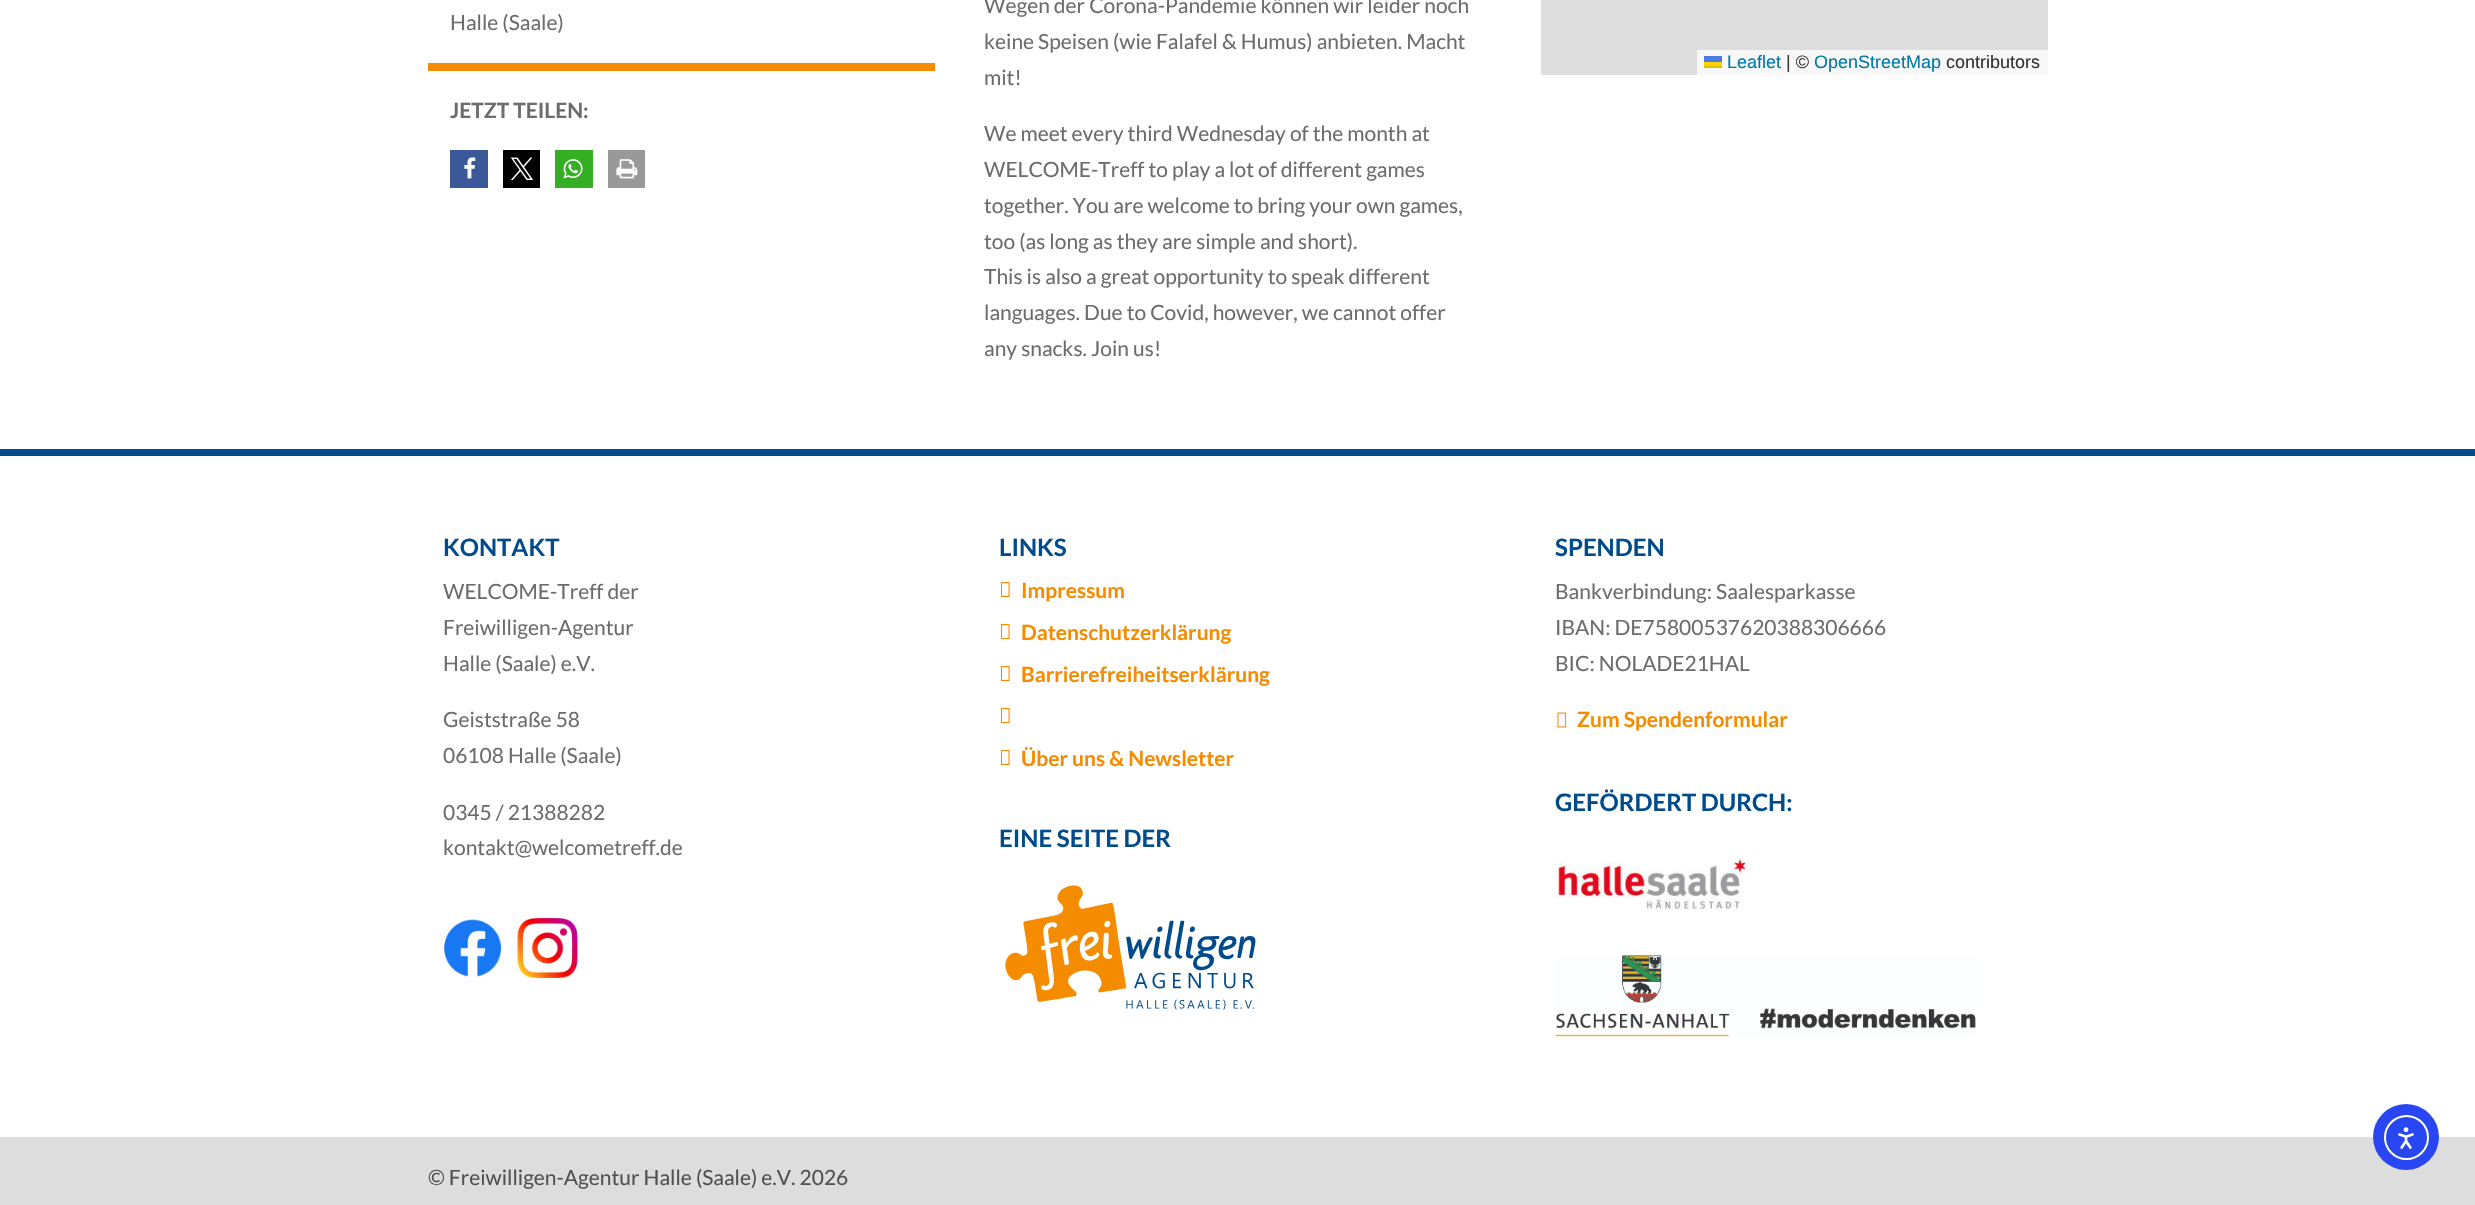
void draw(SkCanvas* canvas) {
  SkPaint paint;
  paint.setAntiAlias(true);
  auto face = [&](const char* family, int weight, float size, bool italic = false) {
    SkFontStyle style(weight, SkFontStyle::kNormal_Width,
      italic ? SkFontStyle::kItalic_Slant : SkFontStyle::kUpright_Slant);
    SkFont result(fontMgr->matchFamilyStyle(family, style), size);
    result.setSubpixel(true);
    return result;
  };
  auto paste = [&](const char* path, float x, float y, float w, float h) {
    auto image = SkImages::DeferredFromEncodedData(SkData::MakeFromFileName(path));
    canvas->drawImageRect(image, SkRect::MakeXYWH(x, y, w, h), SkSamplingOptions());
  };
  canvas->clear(0xffffffff);
  paint.setColor(0xfff58c00);
  canvas->drawRect(SkRect::MakeXYWH(428, 63, 507, 8), paint);
  paint.setColor(0xff3b5998);
  canvas->drawRect(SkRect::MakeXYWH(450, 150, 38, 38), paint);
  paste("img/1.png", 464, 157, 12, 22);
  paint.setColor(0xff000000);
  canvas->drawRect(SkRect::MakeXYWH(503, 150, 37, 38), paint);
  paste("img/2.png", 510, 157, 24, 23);
  paint.setColor(0xff34af23);
  canvas->drawRect(SkRect::MakeXYWH(555, 150, 38, 38), paint);
  paste("img/3.png", 563, 159, 20, 20);
  paint.setColor(0xff999999);
  canvas->drawRect(SkRect::MakeXYWH(608, 150, 37, 38), paint);
  paste("img/4.png", 616, 159, 22, 20);
  {
    const struct { float x, y, w, h; SkColor color; } items[] = {
      {1541, 0, 507, 75, 0xffdddddd},
      {1697, 50, 351, 25, 0xfff8f8f8},
      {1704, 56, 18, 6, 0xff4c7be1},
      {1704, 62, 18, 4, 0xffffd500},
      {1704, 66, 18, 2, 0xffe0bc00},
      {0, 449, 2475, 7, 0xff004b8c},
    };
    for (auto [x, y, w, h, color] : items) {
      paint.setColor(color);
      canvas->drawRect(SkRect::MakeXYWH(x, y, w, h), paint);
    }
  }
  paste("img/5.png", 443, 919, 59, 58);
  paste("img/6.png", 517, 918, 61, 60);
  paste("img/7.png", 1000, 582, 10, 15);
  paste("img/7.png", 1000, 624, 10, 15);
  paste("img/7.png", 1000, 666, 10, 15);
  paste("img/7.png", 1000, 708, 10, 15);
  paste("img/7.png", 1000, 750, 10, 15);
  paste("img/8.png", 1005, 885, 251, 125);
  paste("img/9.png", 1557, 712, 10, 16);
  paste("img/10.png", 1555, 857, 194, 53);
  paste("img/11.png", 1555, 955, 421, 82);
  paint.setColor(0xffdddddd);
  canvas->drawRect(SkRect::MakeXYWH(0, 1137, 2475, 68), paint);
  paint.setColor(0xff2847f3);
  canvas->drawCircle(2406, 1137, 33, paint);
  paint.setStroke(true);
  paint.setStrokeWidth(2);
  paint.setColor(0xffffffff);
  canvas->drawCircle(2406.5f, 1137.5f, 21.5f, paint);
  paste("img/12.png", 2398, 1127, 16, 22);
  auto f0 = face("Lato", 400, 21);
  paint.setStroke(false);
  paint.setColor(0xff6c6c6c);
  canvas->drawString("Halle (Saale)", 450, 30, f0, paint);
  auto f1 = face("Lato", 700, 21);
  canvas->drawString("JETZT TEILEN:", 450, 118, f1, paint);
  {
    const struct { const char* s; float x, y; } items[] = {
      {"Wegen der Corona-Pandemie können wir leider noch", 984, 13},
      {"keine Speisen (wie Falafel & Humus) anbieten. Macht", 984, 49},
      {"mit!", 984, 85},
      {"We meet every third Wednesday of the month at", 984, 141},
      {"WELCOME-Treff to play a lot of different games", 984, 177},
      {"together. You are welcome to bring your own games,", 984, 213},
      {"too (as long as they are simple and short).", 984, 249},
      {"This is also a great opportunity to speak different", 984, 284},
      {"languages. Due to Covid, however, we cannot offer", 984, 320},
      {"any snacks. Join us!", 984, 356},
    };
    for (auto [s, x, y] : items) {
      canvas->drawString(s, x, y, f0, paint);
    }
  }
  auto f2 = face("Liberation Sans", 400, 18);
  paint.setColor(0xff0078a8);
  canvas->drawString("Leaflet", 1727, 68, f2, paint);
  paint.setColor(0xff333333);
  canvas->drawString("| ©", 1786, 68, f2, paint);
  paint.setColor(0xff0078a8);
  canvas->drawString("OpenStreetMap", 1814, 68, f2, paint);
  paint.setColor(0xff333333);
  canvas->drawString("contributors", 1946, 68, f2, paint);
  auto f3 = face("Lato", 700, 24);
  paint.setColor(0xff004b8c);
  canvas->drawString("KONTAKT", 443, 556, f3, paint);
  paint.setColor(0xff6c6c6c);
  {
    const struct { const char* s; float x, y; } items[] = {
      {"WELCOME-Treff der", 443, 599},
      {"Freiwilligen-Agentur", 443, 635},
      {"Halle (Saale) e.V.", 443, 671},
      {"Geiststraße 58", 443, 727},
      {"06108 Halle (Saale)", 443, 763},
      {"0345 / 21388282", 443, 820},
      {"kontakt@welcometreff.de", 443, 855},
    };
    for (auto [s, x, y] : items) {
      canvas->drawString(s, x, y, f0, paint);
    }
  }
  paint.setColor(0xff004b8c);
  canvas->drawString("LINKS", 999, 556, f3, paint);
  paint.setColor(0xfff58c00);
  {
    const struct { const char* s; float x, y; } items[] = {
      {"Impressum", 1021, 598},
      {"Datenschutzerklärung", 1021, 640},
      {"Barrierefreiheitserklärung", 1021, 682},
      {"Über uns & Newsletter", 1021, 766},
    };
    for (auto [s, x, y] : items) {
      canvas->drawString(s, x, y, f1, paint);
    }
  }
  paint.setColor(0xff004b8c);
  canvas->drawString("EINE SEITE DER", 999, 847, f3, paint);
  canvas->drawString("SPENDEN", 1555, 556, f3, paint);
  paint.setColor(0xff6c6c6c);
  {
    const struct { const char* s; float x, y; } items[] = {
      {"Bankverbindung: Saalesparkasse", 1555, 599},
      {"IBAN: DE75800537620388306666", 1555, 635},
      {"BIC: NOLADE21HAL", 1555, 671},
    };
    for (auto [s, x, y] : items) {
      canvas->drawString(s, x, y, f0, paint);
    }
  }
  paint.setColor(0xfff58c00);
  canvas->drawString("Zum Spendenformular", 1577, 727, f1, paint);
  paint.setColor(0xff004b8c);
  canvas->drawString("GEFÖRDERT DURCH:", 1555, 811, f3, paint);
  paint.setColor(0xff515151);
  canvas->drawString("© Freiwilligen-Agentur Halle (Saale) e.V. 2026", 428, 1185, f0, paint);
}
